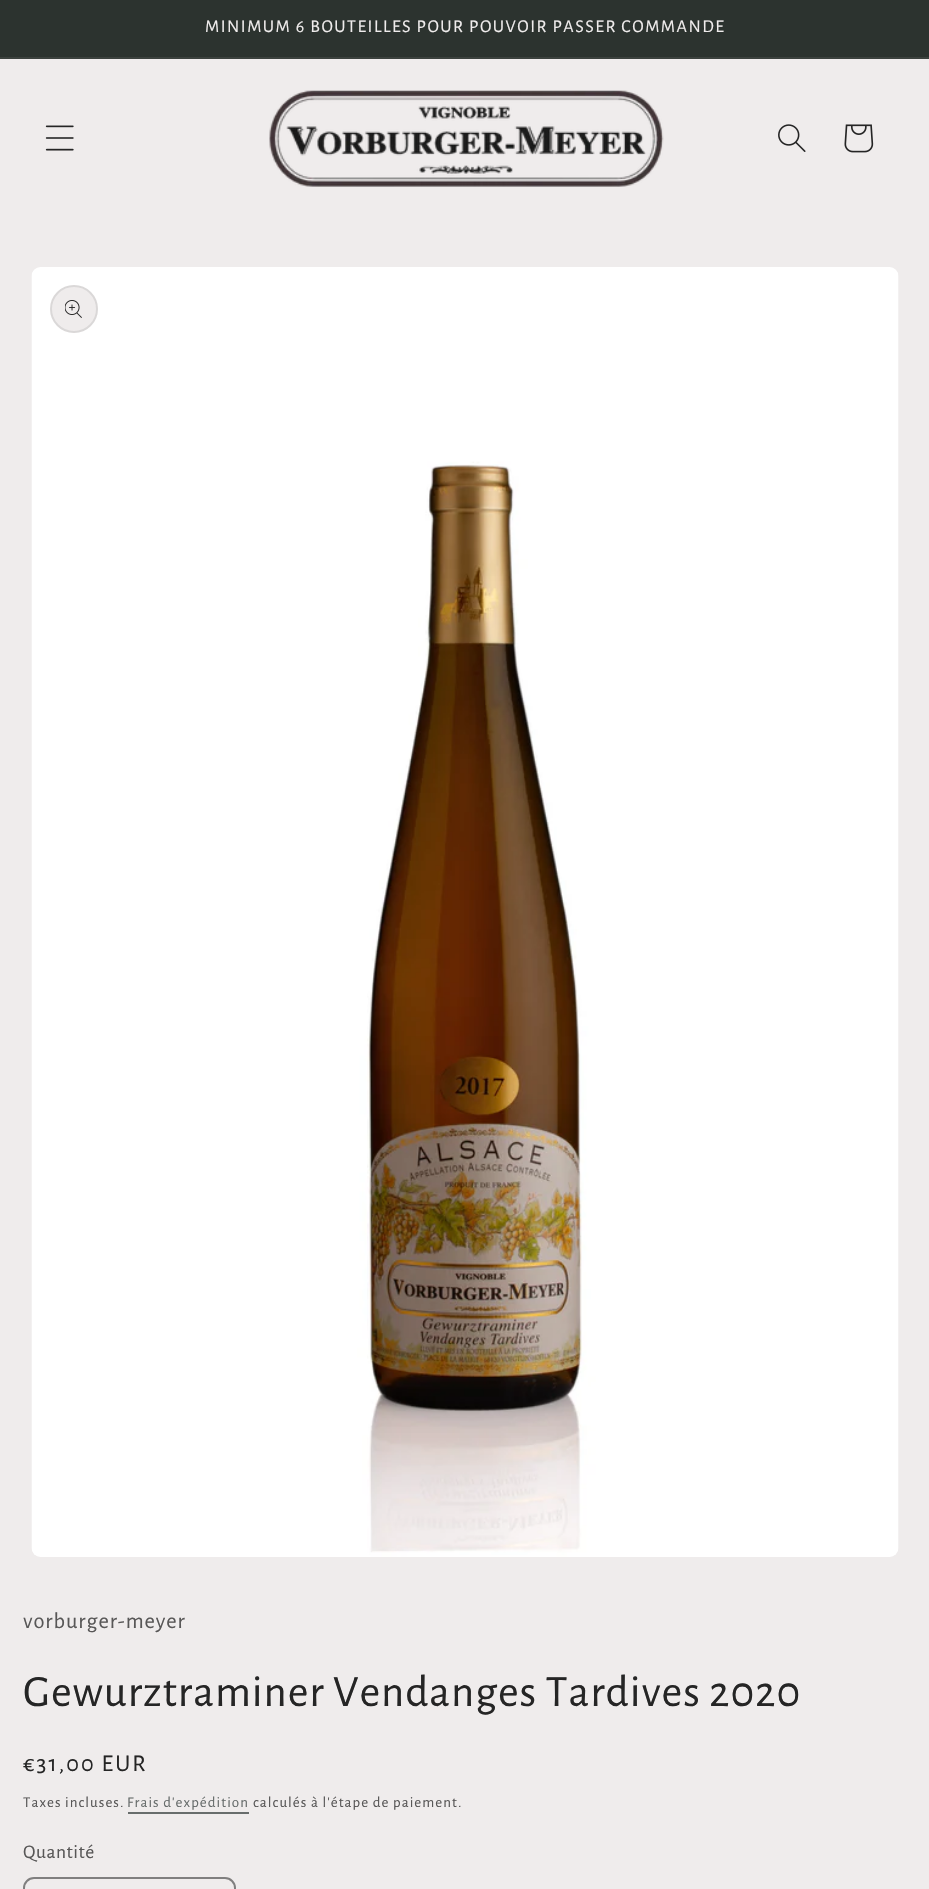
void draw(SkCanvas* canvas) {
  SkPaint paint;
  paint.setAntiAlias(true);
  auto face = [&](const char* family, int weight, float size, bool italic = false) {
    SkFontStyle style(weight, SkFontStyle::kNormal_Width,
      italic ? SkFontStyle::kItalic_Slant : SkFontStyle::kUpright_Slant);
    SkFont result(fontMgr->matchFamilyStyle(family, style), size);
    result.setSubpixel(true);
    return result;
  };
  auto writeSpaced = [&](const char* s, float x, float y, const SkFont& font, const SkPaint& ink, float letter, float word) {
    std::vector<SkGlyphID> glyphs(font.countText(s, strlen(s), SkTextEncoding::kUTF8));
    std::vector<float> xs(glyphs.size());
    font.textToGlyphs(s, strlen(s), SkTextEncoding::kUTF8, glyphs);
    font.getXPos(glyphs, xs, x);
    float extra = 0;
    for (size_t i = 0; i < glyphs.size(); i++) {
      xs[i] += extra;
      extra += letter + word * (glyphs[i] == font.unicharToGlyph(' '));
    }
    canvas->drawTextBlob(SkTextBlob::MakeFromPosHGlyphs(glyphs, xs, y, font), 0, 0, ink);
  };
  auto paste = [&](const char* path, float x, float y, float w, float h) {
    auto image = SkImages::DeferredFromEncodedData(SkData::MakeFromFileName(path));
    canvas->drawImageRect(image, SkRect::MakeXYWH(x, y, w, h), SkSamplingOptions());
  };
  canvas->clear(0xffefecec);
  paint.setColor(0xff2c332f);
  canvas->drawRect(SkRect::MakeXYWH(0, 0, 929, 57), paint);
  paint.setColor(0xff3c423e);
  canvas->drawRect(SkRect::MakeXYWH(0, 57, 929, 2), paint);
  paste("img/1.png", 45, 125, 29, 26);
  paste("img/2.png", 269, 90, 395, 97);
  paste("img/3.png", 778, 124, 28, 28);
  paste("img/4.png", 844, 124, 30, 29);
  paste("img/5.png", 31, 267, 868, 1290);
  paint.setColor(0xffefecec);
  canvas->drawCircle(74, 309, 24, paint);
  paint.setStroke(true);
  paint.setStrokeWidth(2);
  paint.setColor(0x1a252525);
  canvas->drawCircle(74, 309, 23, paint);
  paste("img/6.png", 65, 300, 17, 18);
  paint.setStroke(false);
  paint.setColor(0xff686d6c);
  canvas->drawRect(SkRect::MakeXYWH(128, 1812, 121, 2), paint);
  paint.setStroke(true);
  paint.setColor(0xff807f7f);
  canvas->drawRoundRect(SkRect::MakeXYWH(24, 1878, 211, 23), 10, 10, paint);
  auto f0 = face("Alegreya Sans", 400, 18);
  paint.setStroke(false);
  paint.setColor(0xffefecec);
  writeSpaced("MINIMUM 6 BOUTEILLES POUR POUVOIR PASSER COMMANDE", 205, 32, f0, paint, 1.5f, 0);
  auto f1 = face("Alegreya Sans", 400, 22.5f);
  paint.setColor(0xff585757);
  writeSpaced("vorburger-meyer", 23, 1628, f1, paint, 0.9f, 0);
  auto f2 = face("Alegreya Sans", 400, 45);
  paint.setColor(0xff252525);
  writeSpaced("Gewurztraminer Vendanges Tardives 2020", 23, 1706, f2, paint, 0.9f, 0);
  auto f3 = face("Alegreya Sans", 400, 24);
  writeSpaced("€31,00 EUR", 23, 1771, f3, paint, 2, 0);
  auto f4 = face("Alegreya Sans", 400, 15);
  paint.setColor(0xff585757);
  writeSpaced("Taxes incluses.", 23, 1807, f4, paint, 1.05f, 0);
  paint.setColor(0xff686d6c);
  writeSpaced("Frais d'expédition", 127, 1807, f4, paint, 1.05f, 0);
  paint.setColor(0xff585757);
  writeSpaced("calculés à l'étape de paiement.", 253, 1807, f4, paint, 1.05f, 0);
  auto f5 = face("Alegreya Sans", 400, 19.5f);
  writeSpaced("Quantité", 23, 1858, f5, paint, 0.5f, 0);
}
